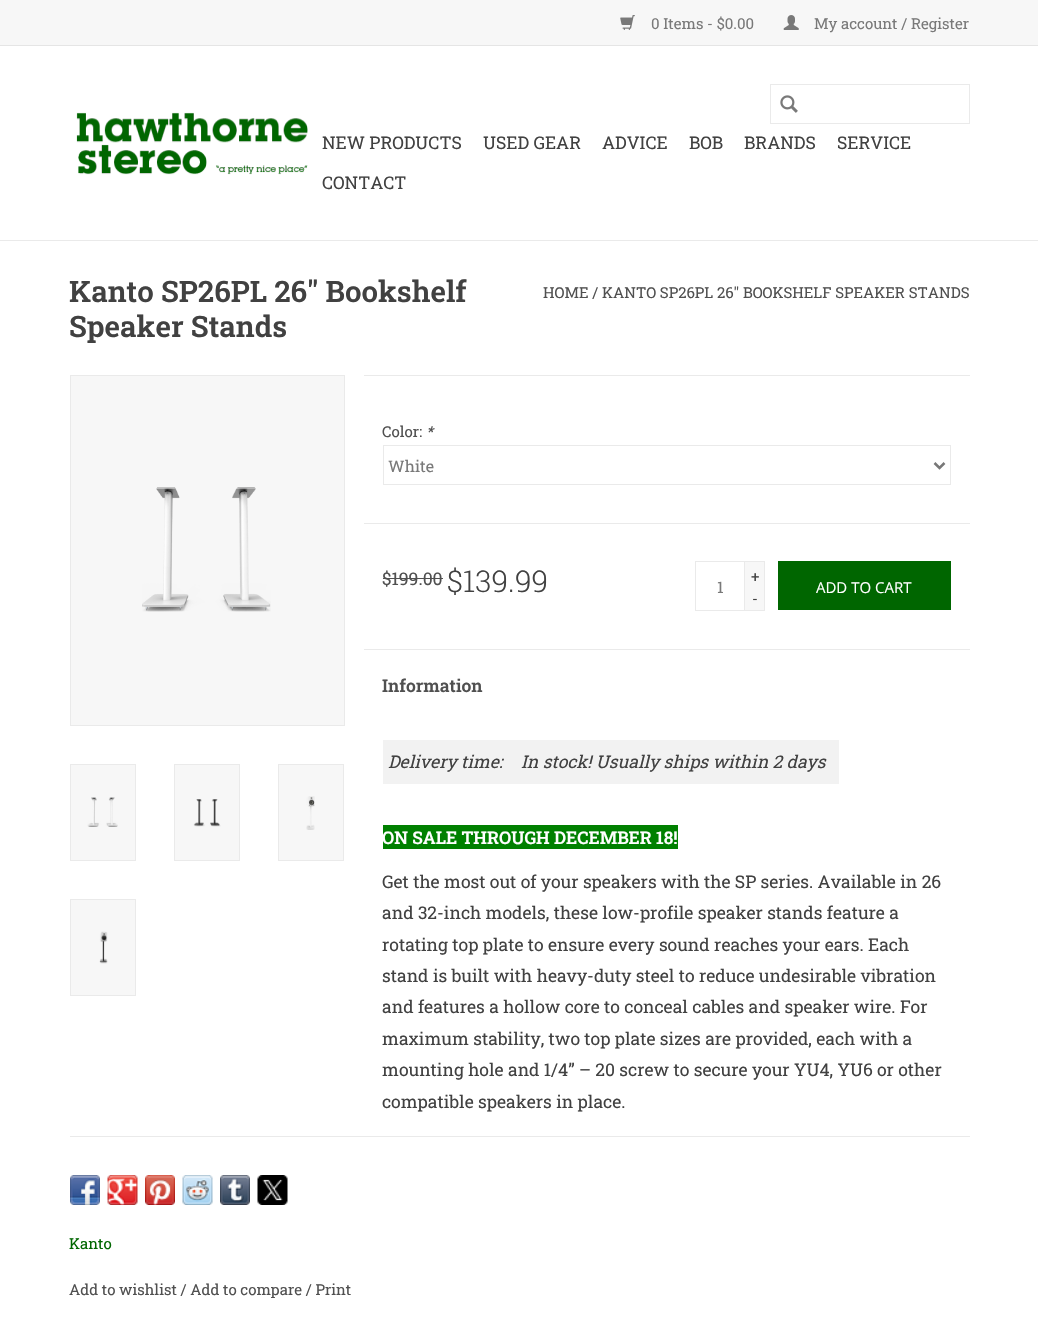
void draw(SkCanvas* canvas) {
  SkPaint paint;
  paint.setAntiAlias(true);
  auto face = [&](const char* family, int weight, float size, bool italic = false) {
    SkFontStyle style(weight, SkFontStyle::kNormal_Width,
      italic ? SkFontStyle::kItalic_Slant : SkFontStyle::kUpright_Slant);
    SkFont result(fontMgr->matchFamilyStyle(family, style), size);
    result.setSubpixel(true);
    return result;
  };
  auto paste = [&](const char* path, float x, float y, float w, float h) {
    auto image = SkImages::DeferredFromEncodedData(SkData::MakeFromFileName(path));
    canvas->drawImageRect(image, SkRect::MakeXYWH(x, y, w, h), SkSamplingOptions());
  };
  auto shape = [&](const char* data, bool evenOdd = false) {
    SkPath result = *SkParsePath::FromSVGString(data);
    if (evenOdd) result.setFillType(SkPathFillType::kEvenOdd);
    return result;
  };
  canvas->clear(0xffffffff);
  {
    const struct { float x, y, w, h; SkColor color; } items[] = {
      {0, 240, 1038, 1, 0xffeaeaea},
      {0, 0, 1038, 45, 0xfff7f7f7},
      {0, 45, 1038, 1, 0xffe5e5e5},
    };
    for (auto [x, y, w, h, color] : items) {
      paint.setColor(color);
      canvas->drawRect(SkRect::MakeXYWH(x, y, w, h), paint);
    }
  }
  paste("img/1.png", 620, 15, 15, 15);
  paste("img/2.png", 783, 15, 16, 15);
  paste("img/3.png", 76, 112, 232, 63);
  paint.setStroke(true);
  paint.setStrokeWidth(1);
  paint.setColor(0xffeaeaea);
  canvas->drawRect(SkRect::MakeXYWH(770.5f, 84.5f, 199, 39), paint);
  paste("img/4.png", 780, 95, 18, 18);
  canvas->drawRect(SkRect::MakeXYWH(70.5f, 375.5f, 274, 350), paint);
  paint.setStroke(false);
  paint.setColor(0xfff7f7f7);
  canvas->drawRect(SkRect::MakeXYWH(71, 376, 273, 349), paint);
  paste("img/5.png", 142, 487, 129, 125);
  paint.setStroke(true);
  paint.setColor(0xffeaeaea);
  canvas->drawRect(SkRect::MakeXYWH(70.5f, 764.5f, 65, 96), paint);
  paint.setStroke(false);
  paint.setColor(0xfff7f7f7);
  canvas->drawRect(SkRect::MakeXYWH(71, 765, 64, 95), paint);
  paste("img/6.png", 87, 797, 31, 30);
  paint.setStroke(true);
  paint.setColor(0xffeaeaea);
  canvas->drawRect(SkRect::MakeXYWH(174.5f, 764.5f, 65, 96), paint);
  paint.setStroke(false);
  paint.setColor(0xfff7f7f7);
  canvas->drawRect(SkRect::MakeXYWH(175, 765, 64, 95), paint);
  paste("img/7.png", 193, 799, 28, 28);
  paint.setStroke(true);
  paint.setColor(0xffeaeaea);
  canvas->drawRect(SkRect::MakeXYWH(278.5f, 764.5f, 65, 96), paint);
  paint.setStroke(false);
  paint.setColor(0xfff7f7f7);
  canvas->drawRect(SkRect::MakeXYWH(279, 765, 64, 95), paint);
  paste("img/8.png", 306, 796, 9, 34);
  paint.setStroke(true);
  paint.setColor(0xffeaeaea);
  canvas->drawRect(SkRect::MakeXYWH(70.5f, 899.5f, 65, 96), paint);
  paint.setStroke(false);
  paint.setColor(0xfff7f7f7);
  canvas->drawRect(SkRect::MakeXYWH(71, 900, 64, 95), paint);
  paste("img/9.png", 99, 931, 9, 33);
  paint.setColor(0xffeaeaea);
  canvas->drawRect(SkRect::MakeXYWH(364, 375, 606, 1), paint);
  paint.setStroke(true);
  canvas->drawRect(SkRect::MakeXYWH(383.5f, 445.5f, 567, 39), paint);
  paint.setStrokeWidth(2.5f);
  paint.setColor(0xff777777);
  canvas->drawPath(shape("M934.5 463L939.5 468L944.5 463"), paint);
  paint.setStroke(false);
  paint.setColor(0xffeaeaea);
  canvas->drawRect(SkRect::MakeXYWH(364, 523, 606, 1), paint);
  paint.setColor(0xff505050);
  canvas->drawRect(SkRect::MakeXYWH(383, 578, 60, 1), paint);
  paint.setStroke(true);
  paint.setStrokeWidth(1);
  paint.setColor(0xffeaeaea);
  canvas->drawRect(SkRect::MakeXYWH(695.5f, 561.5f, 49, 49), paint);
  paint.setStroke(false);
  {
    const struct { float x, y, w, h; SkColor color; } items[] = {
      {745, 562, 19, 48, 0xfff7f7f7},
      {745, 561, 20, 1, 0xffeaeaea},
      {764, 561, 1, 50, 0xffeaeaea},
      {745, 610, 20, 1, 0xffeaeaea},
      {778, 561, 173, 49, 0xff006600},
      {364, 649, 606, 1, 0xffeaeaea},
      {383, 740, 456, 44, 0xfff2f2f2},
      {383, 825, 295, 24, 0xff008000},
      {70, 1136, 900, 1, 0xffeaeaea},
    };
    for (auto [x, y, w, h, color] : items) {
      paint.setColor(color);
      canvas->drawRect(SkRect::MakeXYWH(x, y, w, h), paint);
    }
  }
  paste("img/10.png", 70, 1175, 30, 30);
  paste("img/11.png", 107, 1175, 31, 30);
  paste("img/12.png", 145, 1175, 30, 30);
  paste("img/13.png", 182, 1175, 31, 30);
  paste("img/14.png", 220, 1175, 30, 30);
  paste("img/15.png", 257, 1175, 31, 30);
  auto f0 = face("Roboto Slab", 400, 15);
  paint.setColor(0xff797979);
  canvas->drawString("0 Items - $0.00", 651, 29, f0, paint);
  canvas->drawString("My account / Register", 814, 29, f0, paint);
  auto f1 = face("Roboto Slab", 400, 17.5f);
  paint.setColor(0xff414141);
  {
    const struct { const char* s; float x, y; } items[] = {
      {"NEW PRODUCTS", 322, 149},
      {"USED GEAR", 483, 149},
      {"ADVICE", 602, 149},
      {"BOB", 689, 149},
      {"BRANDS", 744, 149},
      {"SERVICE", 837, 149},
      {"CONTACT", 322, 189},
    };
    for (auto [s, x, y] : items) {
      canvas->drawString(s, x, y, f1, paint);
    }
  }
  auto f2 = face("Roboto Slab", 600, 29.5f);
  canvas->drawString("Kanto SP26PL 26\" Bookshelf", 69, 302, f2, paint);
  canvas->drawString("Speaker Stands", 69, 337, f2, paint);
  paint.setColor(0xff505050);
  canvas->drawString("HOME / KANTO SP26PL 26\" BOOKSHELF SPEAKER STANDS", 543, 298, f0, paint);
  canvas->drawString("Color:", 382, 437, f0, paint);
  auto f3 = face("Roboto Slab", 400, 15, true);
  canvas->drawString("*", 426, 437, f3, paint);
  auto f4 = face("Roboto Slab", 400, 16);
  paint.setColor(0xff797979);
  canvas->drawString("White", 388, 472, f4, paint);
  paint.setColor(0xff505050);
  canvas->drawString("$199.00", 382, 585, f1, paint);
  auto f5 = face("Roboto Slab", 300, 30);
  paint.setColor(0xff414141);
  canvas->drawString("$139.99", 447, 592, f5, paint);
  paint.setColor(0xff797979);
  canvas->drawString("1", 717, 593, f4, paint);
  paint.setColor(0xff414141);
  canvas->drawString("+", 751, 582, f0, paint);
  canvas->drawString("-", 752, 604, f0, paint);
  auto f6 = face("Open Sans", 400, 15);
  paint.setColor(0xffffffff);
  canvas->drawString("ADD TO CART", 816, 593, f6, paint);
  auto f7 = face("Roboto Slab", 600, 17.5f);
  paint.setColor(0xff505050);
  canvas->drawString("Information", 382, 692, f7, paint);
  auto f8 = face("Roboto Slab", 400, 17.5f, true);
  paint.setColor(0xff414141);
  canvas->drawString("Delivery time:", 388, 768, f8, paint);
  canvas->drawString("In stock! Usually ships within 2 days", 521, 768, f8, paint);
  paint.setColor(0xffffffff);
  canvas->drawString("ON SALE THROUGH DECEMBER 18!", 382, 844, f7, paint);
  paint.setColor(0xff414141);
  {
    const struct { const char* s; float x, y; } items[] = {
      {"Get the most out of your speakers with the SP series. Available in 26", 382, 888},
      {"and 32-inch models, these low-profile speaker stands feature a", 382, 919},
      {"rotating top plate to ensure every sound reaches your ears. Each", 382, 951},
      {"stand is built with heavy-duty steel to reduce undesirable vibration", 382, 982},
      {"and features a hollow core to conceal cables and speaker wire. For", 382, 1013},
      {"maximum stability, two top plate sizes are provided, each with a", 382, 1045},
      {"mounting hole and 1/4” – 20 screw to secure your YU4, YU6 or other", 382, 1076},
      {"compatible speakers in place.", 382, 1108},
    };
    for (auto [s, x, y] : items) {
      canvas->drawString(s, x, y, f1, paint);
    }
  }
  paint.setColor(0xff006600);
  canvas->drawString("Kanto", 69, 1249, f0, paint);
  paint.setColor(0xff505050);
  canvas->drawString("Add to wishlist / Add to compare / Print", 69, 1295, f0, paint);
}
